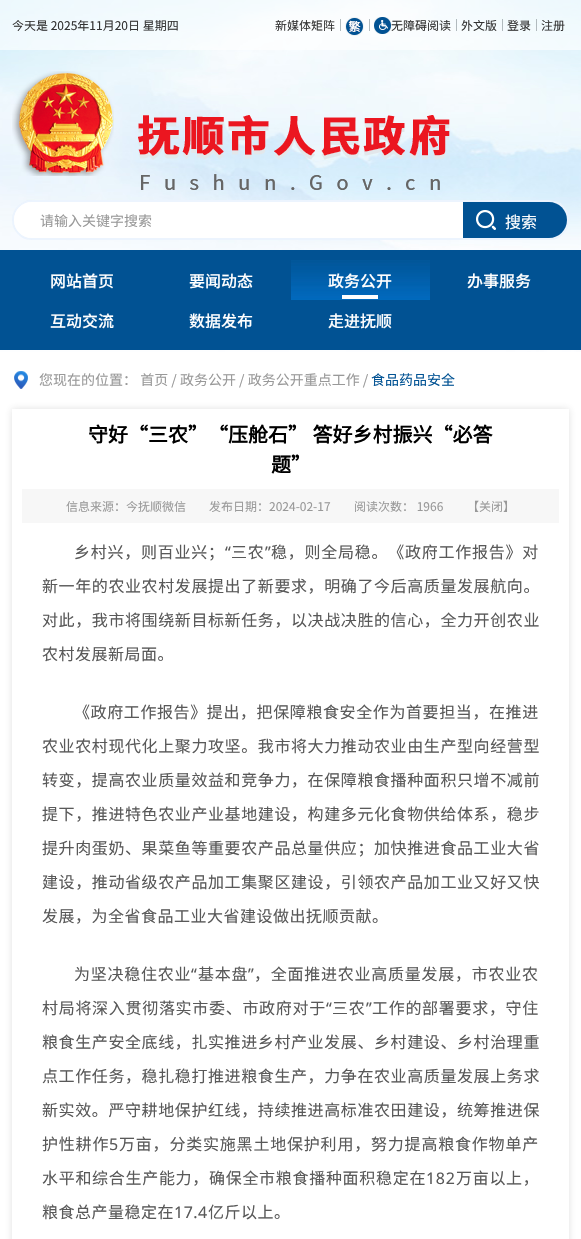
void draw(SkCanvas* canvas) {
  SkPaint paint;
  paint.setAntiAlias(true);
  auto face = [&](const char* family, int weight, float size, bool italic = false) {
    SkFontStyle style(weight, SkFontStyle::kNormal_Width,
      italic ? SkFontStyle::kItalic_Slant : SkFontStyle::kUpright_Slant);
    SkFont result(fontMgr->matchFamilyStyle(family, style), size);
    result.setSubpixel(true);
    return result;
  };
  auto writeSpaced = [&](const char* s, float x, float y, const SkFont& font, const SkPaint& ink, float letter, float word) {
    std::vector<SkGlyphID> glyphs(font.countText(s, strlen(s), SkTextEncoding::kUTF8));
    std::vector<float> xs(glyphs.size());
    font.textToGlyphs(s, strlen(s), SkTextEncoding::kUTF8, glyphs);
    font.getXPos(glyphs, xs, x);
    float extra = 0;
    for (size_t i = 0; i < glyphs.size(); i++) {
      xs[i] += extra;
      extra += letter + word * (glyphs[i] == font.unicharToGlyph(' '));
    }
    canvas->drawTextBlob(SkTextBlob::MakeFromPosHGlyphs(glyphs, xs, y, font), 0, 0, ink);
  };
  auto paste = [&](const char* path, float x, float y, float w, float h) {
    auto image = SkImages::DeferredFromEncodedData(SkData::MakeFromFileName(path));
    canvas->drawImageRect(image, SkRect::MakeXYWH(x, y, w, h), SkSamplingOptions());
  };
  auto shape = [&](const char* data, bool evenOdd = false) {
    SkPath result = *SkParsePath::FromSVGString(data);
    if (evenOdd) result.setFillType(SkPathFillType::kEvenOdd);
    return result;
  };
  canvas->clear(0xffffffff);
  paste("img/1.png", 0, 0, 581, 352);
  paint.setColor(0x9effffff);
  canvas->drawRect(SkRect::MakeXYWH(0, 0, 581, 50), paint);
  paint.setColor(0xffb1babe);
  canvas->drawRect(SkRect::MakeXYWH(340, 19, 1, 12), paint);
  paste("img/2.png", 345, 17, 19, 19);
  canvas->drawRect(SkRect::MakeXYWH(369, 19, 1, 12), paint);
  paste("img/3.png", 374, 17, 17, 17);
  {
    const struct { float x, y, w, h; SkColor color; } items[] = {
      {456, 19, 1, 12, 0xffb1babe},
      {502, 19, 1, 12, 0xffb1babe},
      {536, 19, 1, 12, 0xffb1babe},
    };
    for (auto [x, y, w, h, color] : items) {
      paint.setColor(color);
      canvas->drawRect(SkRect::MakeXYWH(x, y, w, h), paint);
    }
  }
  paste("img/4.png", 12, 71, 102, 105);
  paste("img/5.png", 138, 115, 312, 75);
  paint.setColor(0xffffffff);
  canvas->drawRoundRect(SkRect::MakeXYWH(12, 200, 557, 40), 20, 20, paint);
  paint.setStroke(true);
  paint.setStrokeWidth(2);
  paint.setColor(0x173085f5);
  canvas->drawRoundRect(SkRect::MakeXYWH(13, 201, 555, 38), 19, 19, paint);
  paint.setStroke(false);
  paint.setColor(0xffffffff);
  canvas->drawPath(shape("M32 202H463V238H32C22 238 14 230 14 220C14 210 22 202 32 202Z"), paint);
  paint.setColor(0xff015293);
  canvas->drawPath(shape("M463 202H549C559 202 567 210 567 220C567 230 559 238 549 238H463Z"), paint);
  paste("img/6.png", 476, 210, 20, 20);
  canvas->drawRect(SkRect::MakeXYWH(0, 250, 581, 100), paint);
  paste("img/7.png", 291, 260, 139, 40);
  paint.setColor(0xffffffff);
  canvas->drawRect(SkRect::MakeXYWH(342, 295, 36, 4), paint);
  paste("img/8.png", 14, 371, 14, 18);
  canvas->save();
  canvas->clipPath(shape("M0 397H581V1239H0ZM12 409H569V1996H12Z", true), true);
  paint.setColor(0x293d3e41);
  paint.setMaskFilter(SkMaskFilter::MakeBlur(kNormal_SkBlurStyle, 3.5f));
  canvas->drawRect(SkRect::MakeXYWH(12, 409, 557, 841), paint);
  paint.setMaskFilter(nullptr);
  canvas->restore();
  paint.setColor(0xfff7f7f7);
  canvas->drawRect(SkRect::MakeXYWH(22, 489, 537, 34), paint);
  auto f0 = face("Noto Sans SC", 400, 12);
  paint.setColor(0xff333333);
  {
    const struct { const char* s; float x, y; } items[] = {
      {"今天是 2025年11月20日 星期四", 12, 30},
      {"新媒体矩阵", 275, 30},
      {"无障碍阅读", 391, 30},
      {"外文版", 461, 30},
      {"登录", 507, 30},
      {"注册", 541, 30},
    };
    for (auto [s, x, y] : items) {
      canvas->drawString(s, x, y, f0, paint);
    }
  }
  auto f1 = face("Noto Sans SC", 400, 14);
  paint.setColor(0xff999999);
  canvas->drawString("请输入关键字搜索", 40, 226, f1, paint);
  auto f2 = face("Noto Sans SC", 400, 16);
  paint.setColor(0xffffffff);
  canvas->drawString("搜索", 505, 228, f2, paint);
  auto f3 = face("Noto Sans SC", 500, 16);
  {
    const struct { const char* s; float x, y; } items[] = {
      {"网站首页", 50, 287},
      {"要闻动态", 189, 287},
      {"政务公开", 328, 287},
      {"办事服务", 467, 287},
      {"互动交流", 50, 327},
      {"数据发布", 189, 327},
      {"走进抚顺", 328, 327},
    };
    for (auto [s, x, y] : items) {
      canvas->drawString(s, x, y, f3, paint);
    }
  }
  paint.setColor(0xff999999);
  canvas->drawString("您现在的位置： 首页 / 政务公开 / 政务公开重点工作 /", 39, 385, f1, paint);
  paint.setColor(0xff015293);
  canvas->drawString("食品药品安全", 371, 385, f1, paint);
  auto f4 = face("Noto Sans SC", 700, 20);
  paint.setColor(0xff000000);
  canvas->drawString("守好“三农”“压舱石” 答好乡村振兴“必答", 88, 442, f4, paint);
  canvas->drawString("题”", 271, 472, f4, paint);
  paint.setColor(0xff999999);
  {
    const struct { const char* s; float x, y; } items[] = {
      {"信息来源：今抚顺微信", 66, 511},
      {"发布日期：2024-02-17", 209, 511},
      {"阅读次数： 1966", 354, 511},
    };
    for (auto [s, x, y] : items) {
      canvas->drawString(s, x, y, f0, paint);
    }
  }
  auto f5 = face("Noto Sans CJK SC", 400, 12);
  canvas->drawString("【", 467, 511, f5, paint);
  canvas->drawString("关闭", 479, 511, f0, paint);
  canvas->drawString("】", 503, 511, f5, paint);
  auto f6 = face("Noto Sans CJK SC", 400, 16);
  paint.setColor(0xff595959);
  writeSpaced("乡村兴，则百业兴；", 74, 558, f6, paint, 0.75f, 0);
  auto f7 = face("Noto Sans", 400, 16);
  writeSpaced("“", 225, 558, f7, paint, 0.75f, 0);
  writeSpaced("三农", 231, 558, f6, paint, 0.75f, 0);
  writeSpaced("”", 265, 558, f7, paint, 0.75f, 0);
  writeSpaced("稳，则全局稳。《政府工作报告》对", 271, 558, f6, paint, 0.75f, 0);
  writeSpaced("新一年的农业农村发展提出了新要求，明确了今后高质量发展航向。", 42, 592, f6, paint, 0.6f, 0);
  writeSpaced("对此，我市将围绕新目标新任务，以决战决胜的信心，全力开创农业", 42, 626, f6, paint, 0.6f, 0);
  writeSpaced("农村发展新局面。", 42, 660, f6, paint, 0.5f, 0);
  {
    const struct { const char* s; float x, y; } items[] = {
      {"《政府工作报告》提出，把保障粮食安全作为首要担当，在推进", 74, 718},
      {"农业农村现代化上聚力攻坚。我市将大力推动农业由生产型向经营型", 42, 752},
      {"转变，提高农业质量效益和竞争力，在保障粮食播种面积只增不减前", 42, 786},
      {"提下，推进特色农业产业基地建设，构建多元化食物供给体系，稳步", 42, 820},
      {"提升肉蛋奶、果菜鱼等重要农产品总量供应；加快推进食品工业大省", 42, 854},
      {"建设，推动省级农产品加工集聚区建设，引领农产品加工业又好又快", 42, 888},
    };
    for (auto [s, x, y] : items) {
      writeSpaced(s, x, y, f6, paint, 0.6f, 0);
    }
  }
  writeSpaced("发展，为全省食品工业大省建设做出抚顺贡献。", 42, 922, f6, paint, 0.5f, 0);
  writeSpaced("为坚决稳住农业", 74, 980, f6, paint, 0.75f, 0);
  writeSpaced("“", 191, 980, f7, paint, 0.75f, 0);
  writeSpaced("基本盘", 198, 980, f6, paint, 0.75f, 0);
  writeSpaced("”", 248, 980, f7, paint, 0.75f, 0);
  writeSpaced("，全面推进农业高质量发展，市农业农", 254, 980, f6, paint, 0.75f, 0);
  writeSpaced("村局将深入贯彻落实市委、市政府对于", 42, 1014, f6, paint, 0.7f, 0);
  writeSpaced("“", 326, 1014, f7, paint, 0.7f, 0);
  writeSpaced("三农", 332, 1014, f6, paint, 0.7f, 0);
  writeSpaced("”", 366, 1014, f7, paint, 0.7f, 0);
  writeSpaced("工作的部署要求，守住", 372, 1014, f6, paint, 0.7f, 0);
  {
    const struct { const char* s; float x, y; } items[] = {
      {"粮食生产安全底线，扎实推进乡村产业发展、乡村建设、乡村治理重", 42, 1048},
      {"点工作任务，稳扎稳打推进粮食生产，力争在农业高质量发展上务求", 42, 1082},
      {"新实效。严守耕地保护红线，持续推进高标准农田建设，统筹推进保", 42, 1116},
    };
    for (auto [s, x, y] : items) {
      writeSpaced(s, x, y, f6, paint, 0.6f, 0);
    }
  }
  writeSpaced("护性耕作", 42, 1150, f6, paint, 0.8f, 0);
  writeSpaced("5", 109, 1150, f7, paint, 0.8f, 0);
  writeSpaced("万亩，分类实施黑土地保护利用，努力提高粮食作物单产", 119, 1150, f6, paint, 0.8f, 0);
  writeSpaced("水平和综合生产能力，确保全市粮食播种面积稳定在", 42, 1184, f6, paint, 0.7f, 0);
  writeSpaced("182", 426, 1184, f7, paint, 0.7f, 0);
  writeSpaced("万亩以上，", 456, 1184, f6, paint, 0.7f, 0);
  writeSpaced("粮食总产量稳定在", 42, 1218, f6, paint, 0.5f, 0);
  writeSpaced("17.4", 174, 1218, f7, paint, 0.5f, 0);
  writeSpaced("亿斤以上。", 208, 1218, f6, paint, 0.5f, 0);
}
